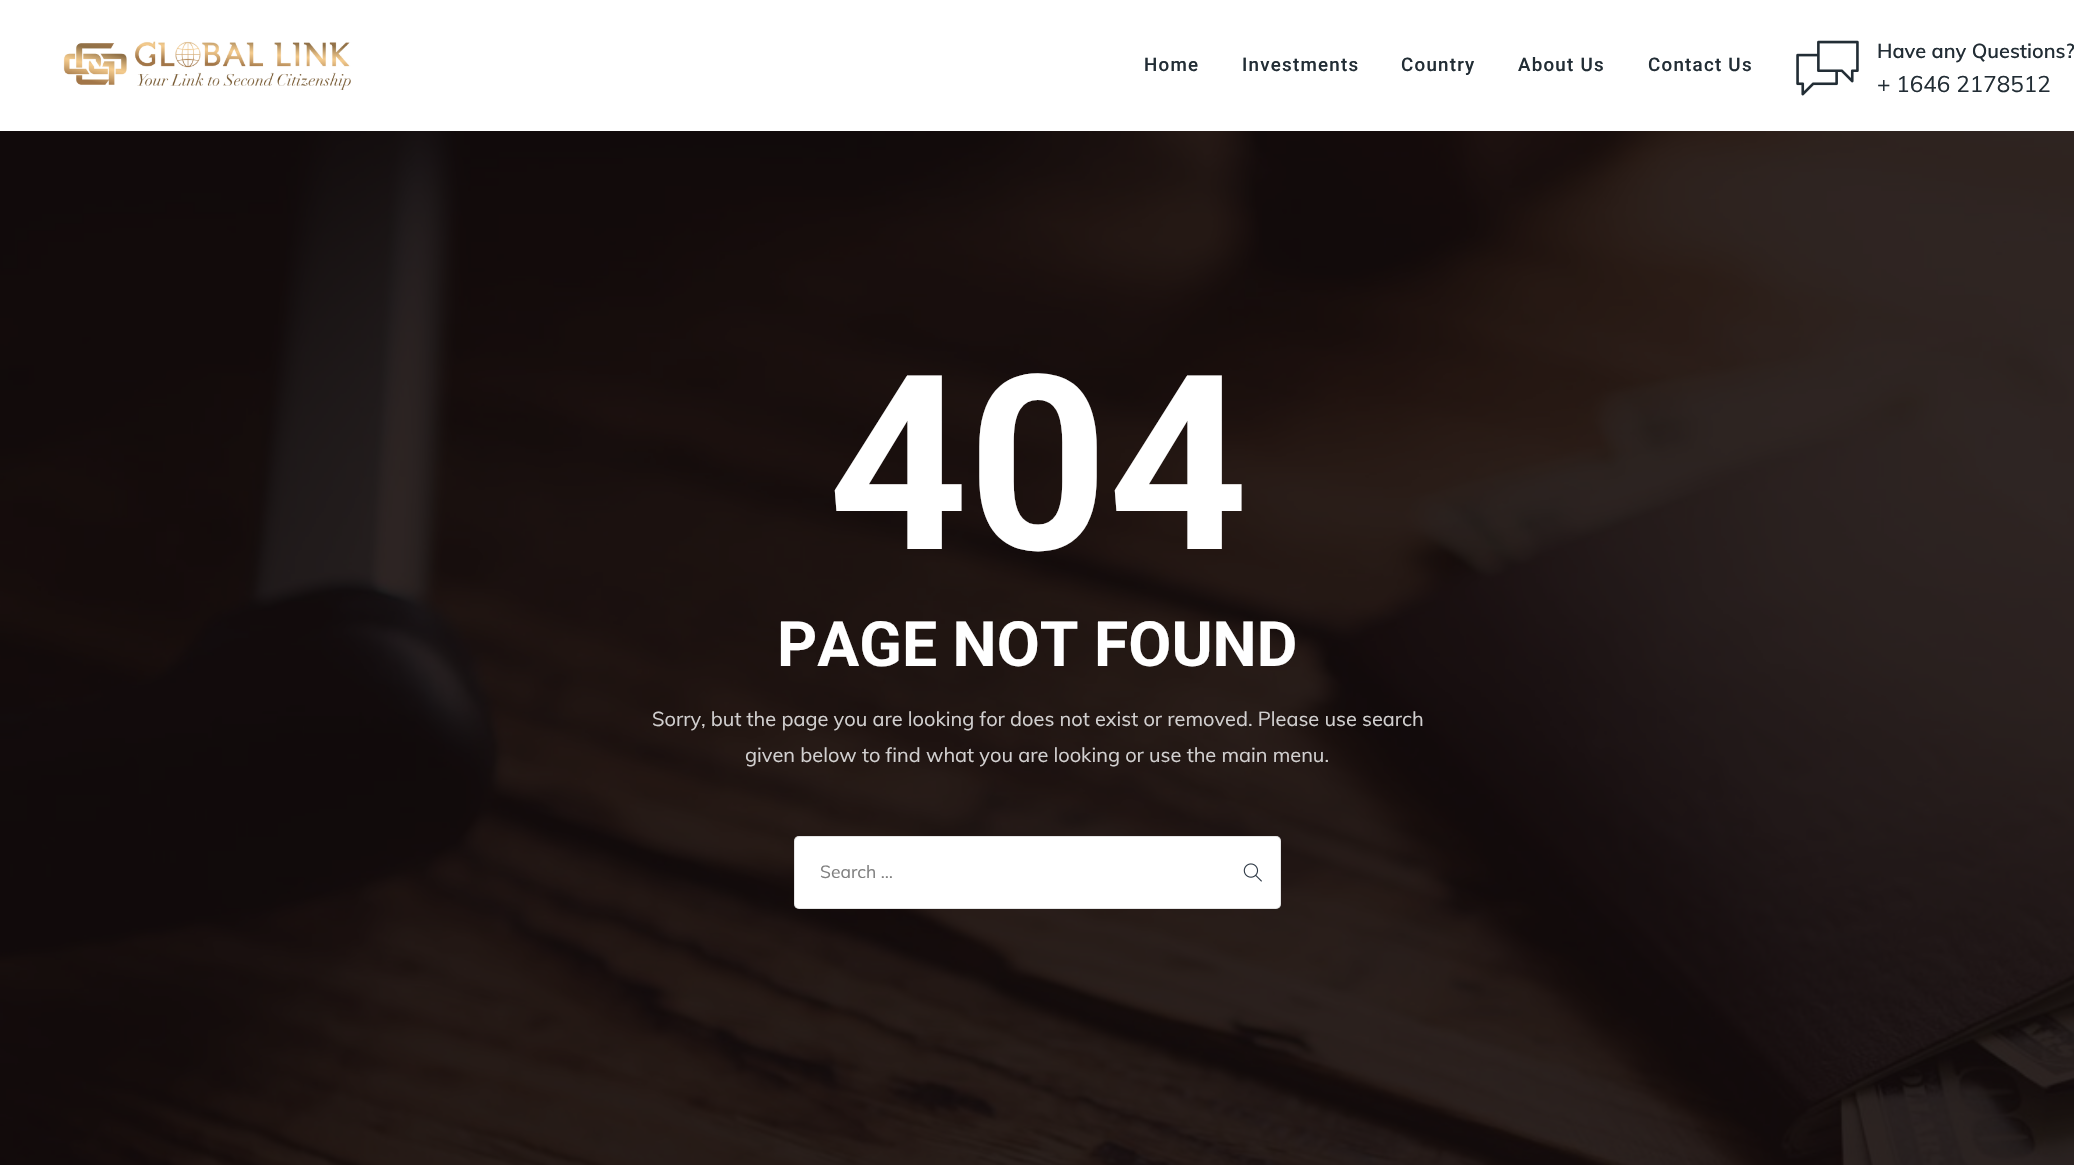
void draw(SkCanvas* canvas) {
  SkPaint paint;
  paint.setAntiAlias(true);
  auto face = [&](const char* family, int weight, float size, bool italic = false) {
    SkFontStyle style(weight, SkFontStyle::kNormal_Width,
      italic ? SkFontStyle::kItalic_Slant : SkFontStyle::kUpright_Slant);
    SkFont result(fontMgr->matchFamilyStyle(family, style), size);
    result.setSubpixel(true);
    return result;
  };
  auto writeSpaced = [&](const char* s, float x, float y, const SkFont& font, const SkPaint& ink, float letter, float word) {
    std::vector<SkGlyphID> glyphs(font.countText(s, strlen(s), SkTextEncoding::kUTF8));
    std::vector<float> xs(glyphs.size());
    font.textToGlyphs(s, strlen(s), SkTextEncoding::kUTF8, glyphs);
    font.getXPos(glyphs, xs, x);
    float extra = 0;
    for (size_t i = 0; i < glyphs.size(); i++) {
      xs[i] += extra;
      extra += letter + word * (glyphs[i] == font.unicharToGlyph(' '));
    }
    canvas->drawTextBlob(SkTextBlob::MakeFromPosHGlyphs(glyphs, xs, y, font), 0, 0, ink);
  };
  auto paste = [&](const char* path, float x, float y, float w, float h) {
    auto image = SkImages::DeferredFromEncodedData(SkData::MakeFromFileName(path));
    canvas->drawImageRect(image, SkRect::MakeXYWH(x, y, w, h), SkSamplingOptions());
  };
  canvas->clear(0xffffffff);
  paste("img/1.png", 63, 41, 288, 49);
  paste("img/2.png", 1796, 40, 63, 56);
  paste("img/3.png", 0, 131, 2074, 1034);
  paint.setColor(0xffffffff);
  canvas->drawRoundRect(SkRect::MakeXYWH(794, 836, 487, 73), 5, 5, paint);
  paint.setStroke(true);
  paint.setStrokeWidth(1);
  paint.setColor(0x33777777);
  canvas->drawRoundRect(SkRect::MakeXYWH(794.5f, 836.5f, 486, 72), 4.5f, 4.5f, paint);
  paste("img/4.png", 1243, 863, 19, 19);
  auto f0 = face("Roboto", 500, 18.75f);
  paint.setStroke(false);
  paint.setColor(0xff222d35);
  {
    const struct { const char* s; float x, y; } items[] = {
      {"Home", 1144, 71},
      {"Investments", 1242, 71},
      {"Country", 1401, 71},
      {"About Us", 1518, 71},
      {"Contact Us", 1648, 71},
    };
    for (auto [s, x, y] : items) {
      writeSpaced(s, x, y, f0, paint, 1.25f, 0);
    }
  }
  auto f1 = face("Muli", 600, 20);
  canvas->drawString("Have any Questions?", 1877, 58, f1, paint);
  auto f2 = face("Muli", 400, 22.5f);
  canvas->drawString("+ 1646 2178512", 1877, 92, f2, paint);
  auto f3 = face("Roboto", 700, 244);
  paint.setColor(0xffffffff);
  canvas->drawString("404", 828, 549, f3, paint);
  auto f4 = face("Roboto", 700, 62.5f);
  canvas->drawString("PAGE NOT FOUND", 777, 666, f4, paint);
  auto f5 = face("Muli", 400, 20);
  paint.setColor(0xffd2d0d0);
  canvas->drawString("Sorry, but the page you are looking for does not exist or removed. Please use search", 652, 726, f5, paint);
  canvas->drawString("given below to find what you are looking or use the main menu.", 745, 762, f5, paint);
  auto f6 = face("Muli", 400, 17.5f);
  paint.setColor(0xff808080);
  canvas->drawString("Search …", 820, 878, f6, paint);
}
